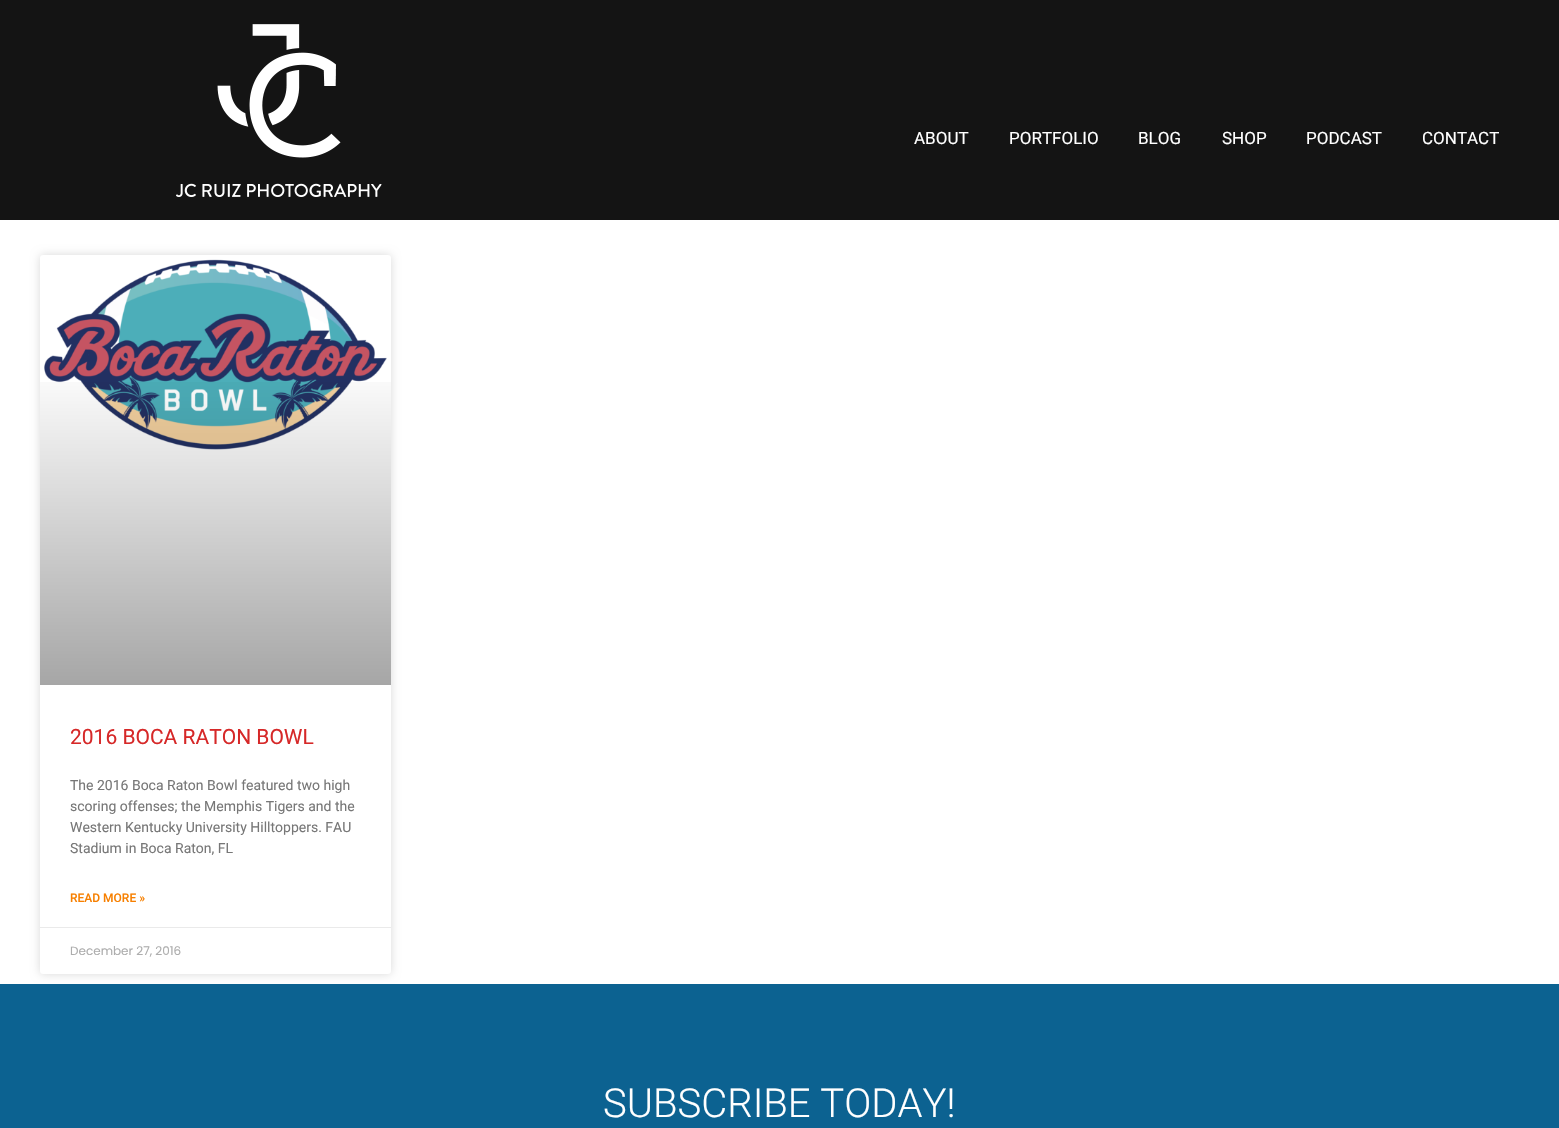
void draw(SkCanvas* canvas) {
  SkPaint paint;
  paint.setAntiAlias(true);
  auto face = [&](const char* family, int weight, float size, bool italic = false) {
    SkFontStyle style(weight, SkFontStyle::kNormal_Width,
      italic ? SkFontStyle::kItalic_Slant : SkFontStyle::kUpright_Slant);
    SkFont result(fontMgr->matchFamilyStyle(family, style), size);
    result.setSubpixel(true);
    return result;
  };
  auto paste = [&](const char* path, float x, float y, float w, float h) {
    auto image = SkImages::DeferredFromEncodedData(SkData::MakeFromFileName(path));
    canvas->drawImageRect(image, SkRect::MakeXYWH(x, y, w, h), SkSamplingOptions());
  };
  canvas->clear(0xffffffff);
  paint.setColor(0xff141414);
  canvas->drawRect(SkRect::MakeXYWH(0, 0, 1559, 220), paint);
  paste("img/1.png", 176, 24, 206, 173);
  paint.setColor(0x26000000);
  paint.setMaskFilter(SkMaskFilter::MakeBlur(kNormal_SkBlurStyle, 5));
  canvas->drawRoundRect(SkRect::MakeXYWH(40, 255, 351, 719), 3, 3, paint);
  paint.setMaskFilter(nullptr);
  paint.setColor(0xffffffff);
  canvas->drawRoundRect(SkRect::MakeXYWH(40, 255, 351, 719), 3, 3, paint);
  paste("img/2.png", 44, 259, 343, 191);
  {
    const SkColor colors[] = {0x59000000, 0x00000000};
    const float stops[] = {0, 0.75f};
    const SkPoint ends[] = {{216, 685}, {216, 255}};
    paint.setShader(SkGradientShader::MakeLinear(ends, colors, stops, 2, SkTileMode::kClamp));
    paint.setAlpha(255);
  }
  canvas->drawRect(SkRect::MakeXYWH(40, 382, 351, 303), paint);
  paint.setShader(nullptr);
  paint.setColor(0xffeaeaea);
  canvas->drawRect(SkRect::MakeXYWH(40, 927, 351, 1), paint);
  paint.setColor(0xff0c6291);
  canvas->drawRect(SkRect::MakeXYWH(0, 984, 1559, 144), paint);
  auto f0 = face("Roboto", 400, 17);
  paint.setColor(0xffffffff);
  {
    const struct { const char* s; float x, y; } items[] = {
      {"ABOUT", 914, 144},
      {"PORTFOLIO", 1009, 144},
      {"BLOG", 1138, 144},
      {"SHOP", 1222, 144},
      {"PODCAST", 1306, 144},
      {"CONTACT", 1422, 144},
    };
    for (auto [s, x, y] : items) {
      canvas->drawString(s, x, y, f0, paint);
    }
  }
  auto f1 = face("Roboto", 400, 21);
  paint.setColor(0xffd62828);
  canvas->drawString("2016 BOCA RATON BOWL", 70, 744, f1, paint);
  auto f2 = face("Roboto", 400, 14);
  paint.setColor(0xff777777);
  {
    const struct { const char* s; float x, y; } items[] = {
      {"The 2016 Boca Raton Bowl featured two high", 70, 790},
      {"scoring offenses; the Memphis Tigers and the", 70, 811},
      {"Western Kentucky University Hilltoppers. FAU", 70, 832},
      {"Stadium in Boca Raton, FL", 70, 853},
    };
    for (auto [s, x, y] : items) {
      canvas->drawString(s, x, y, f2, paint);
    }
  }
  auto f3 = face("Roboto", 500, 12);
  paint.setColor(0xfff77f00);
  canvas->drawString("READ MORE »", 70, 902, f3, paint);
  auto f4 = face("Poppins", 400, 12);
  paint.setColor(0xffadadad);
  canvas->drawString("December 27, 2016", 70, 955, f4, paint);
  auto f5 = face("Roboto", 300, 40);
  paint.setColor(0xffffffff);
  canvas->drawString("SUBSCRIBE TODAY!", 603, 1117, f5, paint);
}
